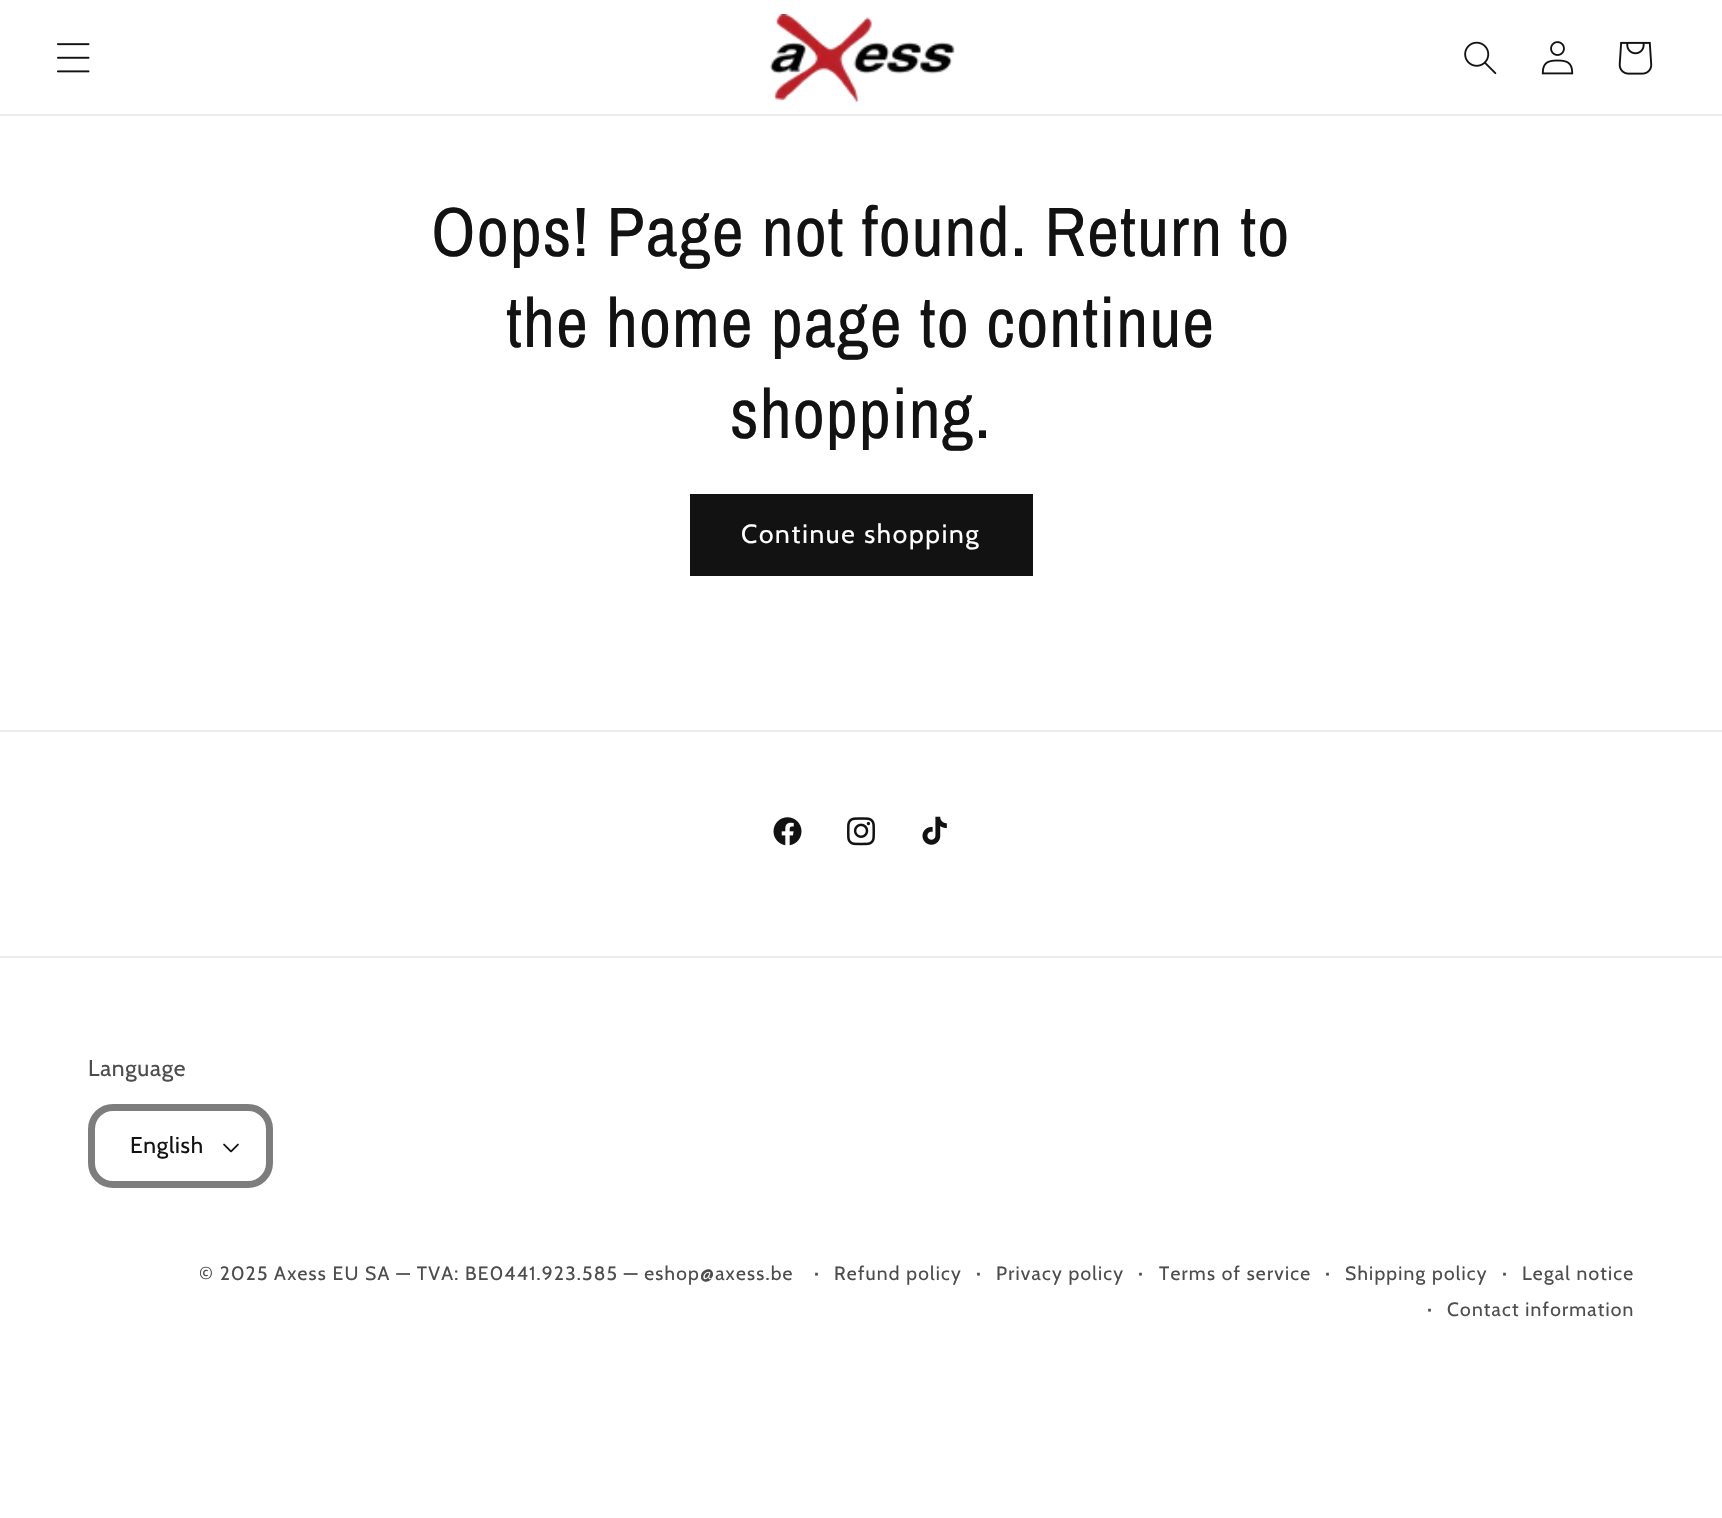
void draw(SkCanvas* canvas) {
  SkPaint paint;
  paint.setAntiAlias(true);
  auto face = [&](const char* family, int weight, float size, bool italic = false) {
    SkFontStyle style(weight, SkFontStyle::kNormal_Width,
      italic ? SkFontStyle::kItalic_Slant : SkFontStyle::kUpright_Slant);
    SkFont result(fontMgr->matchFamilyStyle(family, style), size);
    result.setSubpixel(true);
    return result;
  };
  auto writeSpaced = [&](const char* s, float x, float y, const SkFont& font, const SkPaint& ink, float letter, float word) {
    std::vector<SkGlyphID> glyphs(font.countText(s, strlen(s), SkTextEncoding::kUTF8));
    std::vector<float> xs(glyphs.size());
    font.textToGlyphs(s, strlen(s), SkTextEncoding::kUTF8, glyphs);
    font.getXPos(glyphs, xs, x);
    float extra = 0;
    for (size_t i = 0; i < glyphs.size(); i++) {
      xs[i] += extra;
      extra += letter + word * (glyphs[i] == font.unicharToGlyph(' '));
    }
    canvas->drawTextBlob(SkTextBlob::MakeFromPosHGlyphs(glyphs, xs, y, font), 0, 0, ink);
  };
  auto paste = [&](const char* path, float x, float y, float w, float h) {
    auto image = SkImages::DeferredFromEncodedData(SkData::MakeFromFileName(path));
    canvas->drawImageRect(image, SkRect::MakeXYWH(x, y, w, h), SkSamplingOptions());
  };
  canvas->clear(0xffffffff);
  paint.setColor(0xffececec);
  canvas->drawRect(SkRect::MakeXYWH(0, 114, 1722, 2), paint);
  paste("img/1.png", 57, 43, 33, 30);
  paste("img/2.png", 769, 14, 186, 88);
  paste("img/3.png", 1464, 41, 33, 34);
  paste("img/4.png", 1541, 41, 33, 34);
  paste("img/5.png", 1618, 41, 35, 34);
  paint.setColor(0xff121212);
  canvas->drawRect(SkRect::MakeXYWH(690, 494, 343, 82), paint);
  paint.setColor(0xffececec);
  canvas->drawRect(SkRect::MakeXYWH(0, 730, 1722, 2), paint);
  paste("img/6.png", 773, 817, 29, 29);
  paste("img/7.png", 847, 817, 28, 29);
  paste("img/8.png", 922, 816, 25, 29);
  canvas->drawRect(SkRect::MakeXYWH(0, 956, 1722, 2), paint);
  paste("img/9.png", 223, 1143, 16, 10);
  paint.setStroke(true);
  paint.setStrokeWidth(7);
  paint.setColor(0xff7d7d7d);
  canvas->drawRoundRect(SkRect::MakeXYWH(91.5f, 1107.5f, 178, 77), 21.5f, 21.5f, paint);
  auto f0 = face("Archivo Narrow", 400, 70);
  paint.setStroke(false);
  paint.setColor(0xff121212);
  {
    const struct { const char* s; float x, y; } items[] = {
      {"Oops! Page not found. Return to", 431, 256},
      {"the home page to continue", 506, 347},
      {"shopping.", 730, 438},
    };
    for (auto [s, x, y] : items) {
      writeSpaced(s, x, y, f0, paint, 1.05f, 0);
    }
  }
  auto f1 = face("Cabin", 400, 26.25f);
  paint.setColor(0xffffffff);
  writeSpaced("Continue shopping", 741, 543, f1, paint, 1.75f, 0);
  auto f2 = face("Cabin", 400, 22.75f);
  paint.setColor(0xff4d4d4d);
  writeSpaced("Language", 88, 1076, f2, paint, 0.75f, 0);
  paint.setColor(0xff121212);
  writeSpaced("English", 130, 1153, f2, paint, 0.75f, 0);
  auto f3 = face("Cabin", 400, 19.25f);
  paint.setColor(0xff4d4d4d);
  writeSpaced("© 2025 Axess EU SA — TVA: BE0441.923.585 — eshop@axess.be", 199, 1280, f3, paint, 1.22f, 0);
  auto f4 = face("Cabin", 400, 21);
  writeSpaced("·", 814, 1280, f4, paint, 1.22f, 0);
  writeSpaced("Refund policy", 834, 1280, f3, paint, 1.22f, 0);
  writeSpaced("·", 976, 1280, f4, paint, 1.22f, 0);
  writeSpaced("Privacy policy", 996, 1280, f3, paint, 1.22f, 0);
  writeSpaced("·", 1138, 1280, f4, paint, 1.22f, 0);
  writeSpaced("Terms of service", 1159, 1280, f3, paint, 1.22f, 0);
  writeSpaced("·", 1325, 1280, f4, paint, 1.22f, 0);
  writeSpaced("Shipping policy", 1345, 1280, f3, paint, 1.22f, 0);
  writeSpaced("·", 1502, 1280, f4, paint, 1.22f, 0);
  writeSpaced("Legal notice", 1522, 1280, f3, paint, 1.22f, 0);
  writeSpaced("·", 1427, 1316, f4, paint, 1.22f, 0);
  writeSpaced("Contact information", 1447, 1316, f3, paint, 1.22f, 0);
}
